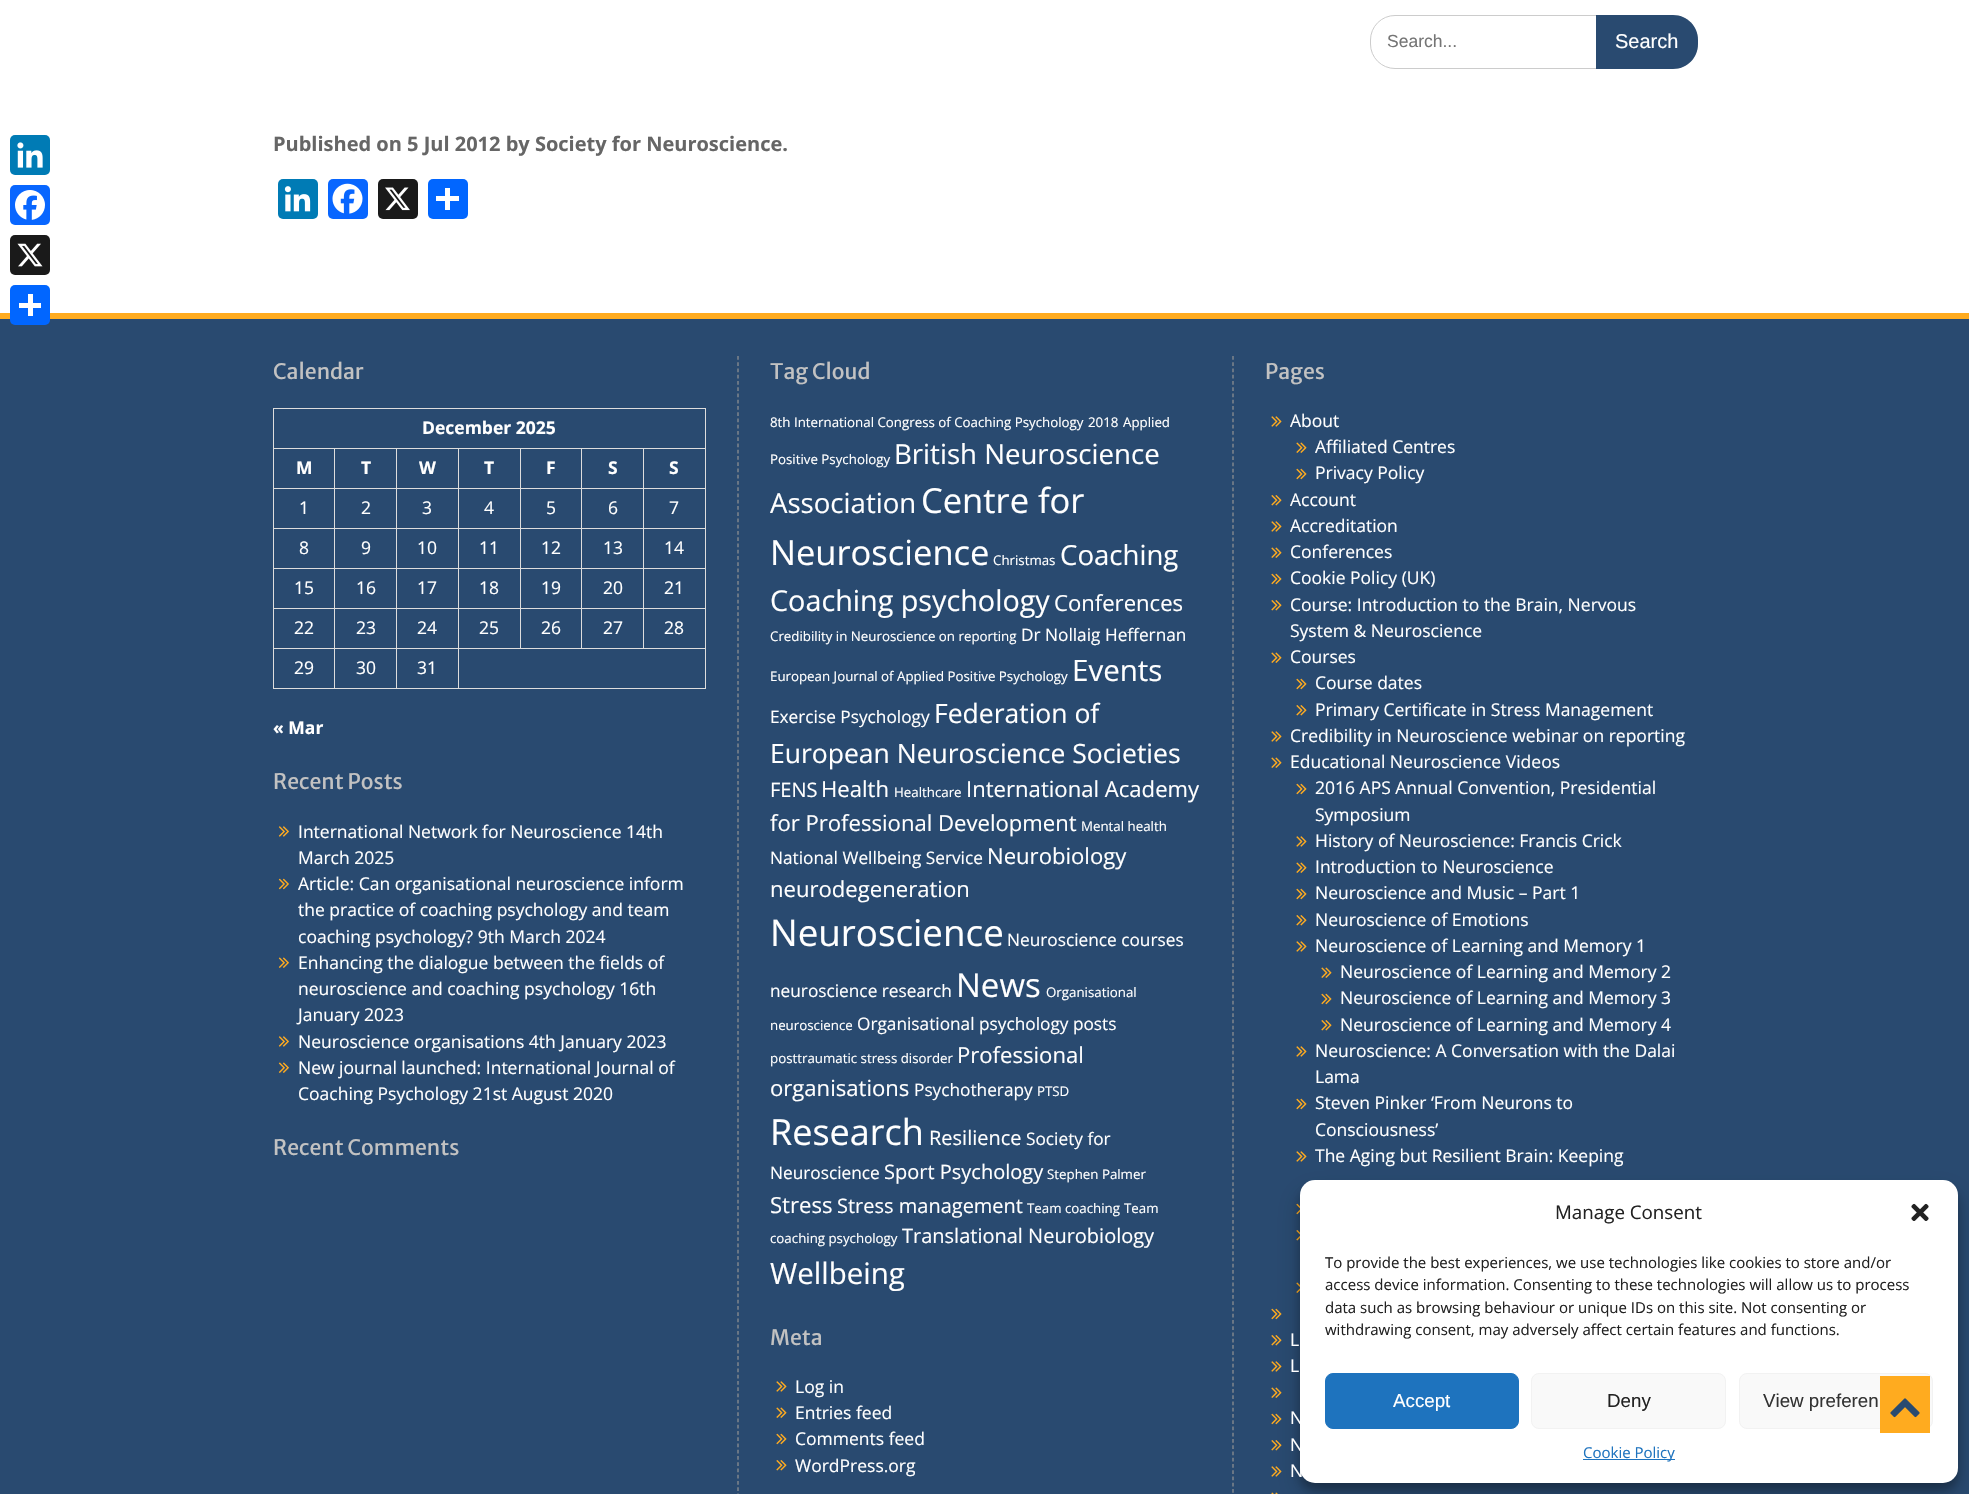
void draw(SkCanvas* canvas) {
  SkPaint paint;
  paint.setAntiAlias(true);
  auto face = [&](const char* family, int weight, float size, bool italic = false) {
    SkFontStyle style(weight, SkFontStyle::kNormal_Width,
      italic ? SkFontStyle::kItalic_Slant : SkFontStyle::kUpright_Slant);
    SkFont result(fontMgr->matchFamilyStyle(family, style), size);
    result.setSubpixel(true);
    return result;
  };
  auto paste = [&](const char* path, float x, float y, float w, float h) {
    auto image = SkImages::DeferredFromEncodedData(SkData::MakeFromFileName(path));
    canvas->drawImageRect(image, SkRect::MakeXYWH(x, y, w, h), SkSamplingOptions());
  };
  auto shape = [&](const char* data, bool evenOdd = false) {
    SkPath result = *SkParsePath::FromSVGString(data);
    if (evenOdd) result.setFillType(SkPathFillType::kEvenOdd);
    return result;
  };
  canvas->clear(0xffffffff);
  paint.setColor(0xff007bb5);
  canvas->drawRoundRect(SkRect::MakeXYWH(10, 135, 40, 40), 5, 5, paint);
  paste("img/1.png", 17, 142, 26, 26);
  paint.setColor(0xff0866ff);
  canvas->drawRoundRect(SkRect::MakeXYWH(10, 185, 40, 40), 5, 5, paint);
  paste("img/2.png", 15, 190, 30, 30);
  paint.setColor(0xff1a1a1a);
  canvas->drawRoundRect(SkRect::MakeXYWH(10, 235, 40, 40), 5, 5, paint);
  paste("img/3.png", 17, 243, 26, 24);
  paint.setColor(0xff294a70);
  canvas->drawRect(SkRect::MakeXYWH(0, 319, 1969, 1175), paint);
  paint.setColor(0xffffab1f);
  canvas->drawRect(SkRect::MakeXYWH(0, 313, 1969, 6), paint);
  paint.setColor(0xff0166ff);
  canvas->drawRoundRect(SkRect::MakeXYWH(10, 285, 40, 40), 5, 5, paint);
  paint.setColor(0xffffffff);
  canvas->drawRect(SkRect::MakeXYWH(28, 294, 5, 22), paint);
  canvas->drawRect(SkRect::MakeXYWH(19, 303, 22, 5), paint);
  paint.setStroke(true);
  paint.setStrokeWidth(1);
  paint.setColor(0xffcccccc);
  canvas->drawRoundRect(SkRect::MakeXYWH(1370.5f, 15.5f, 327, 53), 24.5f, 24.5f, paint);
  paint.setStroke(false);
  paint.setColor(0xff294a70);
  canvas->drawPath(shape("M1596 15H1673C1687 15 1698 26 1698 40V44C1698 58 1687 69 1673 69H1596Z"), paint);
  paint.setColor(0xff007bb5);
  canvas->drawRoundRect(SkRect::MakeXYWH(278, 179, 40, 40), 5, 5, paint);
  paste("img/4.png", 284, 186, 27, 26);
  paint.setColor(0xff0866ff);
  canvas->drawRoundRect(SkRect::MakeXYWH(328, 179, 40, 40), 5, 5, paint);
  paste("img/5.png", 332, 183, 31, 31);
  paint.setColor(0xff1a1a1a);
  canvas->drawRoundRect(SkRect::MakeXYWH(378, 179, 40, 40), 5, 5, paint);
  paste("img/6.png", 385, 187, 25, 24);
  paint.setColor(0xff0166ff);
  canvas->drawRoundRect(SkRect::MakeXYWH(428, 179, 40, 40), 5, 5, paint);
  {
    const struct { float x, y, w, h; SkColor color; } items[] = {
      {445, 188, 5, 22, 0xffffffff},
      {436, 196, 23, 5, 0xffffffff},
      {273, 408, 433, 1, 0xffdddddd},
      {705, 408, 1, 40, 0xffdddddd},
      {273, 408, 1, 40, 0xffdddddd},
      {643, 448, 63, 1, 0xffdddddd},
      {643, 488, 63, 1, 0xffdddddd},
      {643, 528, 63, 1, 0xffdddddd},
      {643, 568, 63, 1, 0xffdddddd},
      {643, 608, 63, 1, 0xffdddddd},
      {458, 648, 248, 1, 0xffdddddd},
      {643, 608, 1, 41, 0xffdddddd},
      {581, 608, 63, 1, 0xffdddddd},
      {643, 568, 1, 41, 0xffdddddd},
      {581, 568, 63, 1, 0xffdddddd},
      {643, 528, 1, 41, 0xffdddddd},
      {581, 528, 63, 1, 0xffdddddd},
      {643, 488, 1, 41, 0xffdddddd},
      {581, 488, 63, 1, 0xffdddddd},
      {643, 448, 1, 41, 0xffdddddd},
      {581, 448, 63, 1, 0xffdddddd},
      {581, 608, 1, 41, 0xffdddddd},
      {520, 608, 63, 1, 0xffdddddd},
      {581, 568, 1, 41, 0xffdddddd},
      {520, 568, 63, 1, 0xffdddddd},
      {581, 528, 1, 41, 0xffdddddd},
      {520, 528, 63, 1, 0xffdddddd},
      {581, 488, 1, 41, 0xffdddddd},
      {520, 488, 63, 1, 0xffdddddd},
      {581, 448, 1, 41, 0xffdddddd},
      {520, 448, 63, 1, 0xffdddddd},
      {520, 608, 1, 41, 0xffdddddd},
      {458, 608, 63, 1, 0xffdddddd},
      {520, 568, 1, 41, 0xffdddddd},
      {458, 568, 63, 1, 0xffdddddd},
      {520, 528, 1, 41, 0xffdddddd},
      {458, 528, 63, 1, 0xffdddddd},
      {520, 488, 1, 41, 0xffdddddd},
      {458, 488, 63, 1, 0xffdddddd},
      {520, 448, 1, 41, 0xffdddddd},
      {458, 448, 63, 1, 0xffdddddd},
      {705, 648, 1, 41, 0xffdddddd},
      {458, 688, 248, 1, 0xffdddddd},
      {458, 648, 1, 41, 0xffdddddd},
      {396, 648, 63, 1, 0xffdddddd},
      {458, 608, 1, 41, 0xffdddddd},
      {396, 608, 63, 1, 0xffdddddd},
      {458, 568, 1, 41, 0xffdddddd},
      {396, 568, 63, 1, 0xffdddddd},
      {458, 528, 1, 41, 0xffdddddd},
      {396, 528, 63, 1, 0xffdddddd},
      {458, 488, 1, 41, 0xffdddddd},
      {396, 488, 63, 1, 0xffdddddd},
      {458, 448, 1, 41, 0xffdddddd},
      {396, 448, 63, 1, 0xffdddddd},
      {396, 688, 63, 1, 0xffdddddd},
      {396, 648, 1, 41, 0xffdddddd},
      {334, 648, 64, 1, 0xffdddddd},
      {396, 608, 1, 41, 0xffdddddd},
      {334, 608, 64, 1, 0xffdddddd},
      {396, 568, 1, 41, 0xffdddddd},
      {334, 568, 64, 1, 0xffdddddd},
      {396, 528, 1, 41, 0xffdddddd},
      {334, 528, 64, 1, 0xffdddddd},
      {396, 488, 1, 41, 0xffdddddd},
      {334, 488, 64, 1, 0xffdddddd},
      {396, 448, 1, 41, 0xffdddddd},
      {334, 448, 64, 1, 0xffdddddd},
      {334, 688, 64, 1, 0xffdddddd},
      {334, 648, 1, 41, 0xffdddddd},
      {273, 648, 62, 1, 0xffdddddd},
      {334, 608, 1, 41, 0xffdddddd},
      {273, 608, 62, 1, 0xffdddddd},
      {334, 568, 1, 41, 0xffdddddd},
      {273, 568, 62, 1, 0xffdddddd},
      {334, 528, 1, 41, 0xffdddddd},
      {273, 528, 62, 1, 0xffdddddd},
      {334, 488, 1, 41, 0xffdddddd},
      {273, 488, 62, 1, 0xffdddddd},
      {334, 448, 1, 41, 0xffdddddd},
      {273, 448, 62, 1, 0xffdddddd},
      {273, 688, 62, 1, 0xffdddddd},
      {273, 648, 1, 41, 0xffdddddd},
      {273, 608, 1, 41, 0xffdddddd},
      {273, 568, 1, 41, 0xffdddddd},
      {273, 528, 1, 41, 0xffdddddd},
      {273, 488, 1, 41, 0xffdddddd},
      {273, 448, 1, 41, 0xffdddddd},
      {705, 608, 1, 41, 0xffdddddd},
      {705, 568, 1, 41, 0xffdddddd},
      {705, 528, 1, 41, 0xffdddddd},
      {705, 488, 1, 41, 0xffdddddd},
      {705, 448, 1, 41, 0xffdddddd},
    };
    for (auto [x, y, w, h, color] : items) {
      paint.setColor(color);
      canvas->drawRect(SkRect::MakeXYWH(x, y, w, h), paint);
    }
  }
  paste("img/7.png", 278, 826, 11, 11);
  paste("img/8.png", 278, 878, 11, 12);
  paste("img/9.png", 278, 957, 11, 11);
  paste("img/7.png", 278, 1036, 11, 11);
  paste("img/9.png", 278, 1062, 11, 11);
  paint.setStroke(true);
  paint.setStrokeWidth(1.2f);
  paint.setColor(0xff939393);
  paint.setPathEffect(SkDashPathEffect::Make({{3.75f, 2.5f}}, 0));
  canvas->drawPath(shape("M738 356V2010"), paint);
  paint.setPathEffect(nullptr);
  paste("img/10.png", 776, 1381, 11, 11);
  paste("img/11.png", 776, 1407, 11, 11);
  paste("img/12.png", 776, 1433, 11, 12);
  paste("img/13.png", 776, 1460, 11, 11);
  paint.setPathEffect(SkDashPathEffect::Make({{3.75f, 2.51f}}, 0));
  canvas->drawPath(shape("M1233 356V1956"), paint);
  paint.setPathEffect(nullptr);
  paste("img/10.png", 1271, 416, 11, 11);
  paste("img/11.png", 1296, 442, 11, 11);
  paste("img/12.png", 1296, 468, 11, 12);
  paste("img/13.png", 1271, 495, 11, 11);
  paste("img/10.png", 1271, 521, 11, 11);
  paste("img/11.png", 1271, 547, 11, 11);
  paste("img/12.png", 1271, 573, 11, 12);
  paste("img/13.png", 1271, 600, 11, 11);
  paste("img/11.png", 1271, 652, 11, 11);
  paste("img/12.png", 1296, 678, 11, 12);
  paste("img/13.png", 1296, 705, 11, 11);
  paste("img/10.png", 1271, 731, 11, 11);
  paste("img/11.png", 1271, 757, 11, 11);
  paste("img/12.png", 1296, 783, 11, 12);
  paste("img/10.png", 1296, 836, 11, 11);
  paste("img/11.png", 1296, 862, 11, 11);
  paste("img/12.png", 1296, 888, 11, 12);
  paste("img/13.png", 1296, 915, 11, 11);
  paste("img/10.png", 1296, 941, 11, 11);
  paste("img/11.png", 1321, 967, 11, 11);
  paste("img/12.png", 1321, 993, 11, 12);
  paste("img/13.png", 1321, 1020, 11, 11);
  paste("img/10.png", 1296, 1046, 11, 11);
  paste("img/12.png", 1296, 1098, 11, 12);
  paste("img/10.png", 1296, 1151, 11, 11);
  paste("img/14.png", 1296, 1203, 4, 12);
  paste("img/15.png", 1296, 1230, 4, 11);
  paste("img/16.png", 1296, 1282, 4, 11);
  paste("img/12.png", 1271, 1308, 11, 12);
  paste("img/13.png", 1271, 1335, 11, 11);
  paste("img/10.png", 1271, 1361, 11, 11);
  paste("img/11.png", 1271, 1387, 11, 11);
  paste("img/12.png", 1271, 1413, 11, 12);
  paste("img/13.png", 1271, 1440, 11, 11);
  paste("img/10.png", 1271, 1466, 11, 11);
  paste("img/17.png", 1271, 1492, 7, 2);
  paint.setStroke(false);
  paint.setColor(0x3b000000);
  paint.setMaskFilter(SkMaskFilter::MakeBlur(kNormal_SkBlurStyle, 4));
  canvas->drawRoundRect(SkRect::MakeXYWH(1300, 1188, 658, 302), 15, 15, paint);
  paint.setMaskFilter(nullptr);
  paint.setColor(0x30000000);
  paint.setMaskFilter(SkMaskFilter::MakeBlur(kNormal_SkBlurStyle, 12.5f));
  canvas->drawRoundRect(SkRect::MakeXYWH(1300, 1193, 658, 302), 15, 15, paint);
  paint.setMaskFilter(nullptr);
  paint.setColor(0xffffffff);
  canvas->drawRoundRect(SkRect::MakeXYWH(1300, 1180, 658, 303), 15, 15, paint);
  paste("img/18.png", 1911, 1203, 18, 18);
  paint.setColor(0xff1e73be);
  canvas->drawRoundRect(SkRect::MakeXYWH(1325.5f, 1373.5f, 193, 55), 7.5f, 7.5f, paint);
  paint.setStroke(true);
  paint.setStrokeWidth(1);
  canvas->drawRoundRect(SkRect::MakeXYWH(1325.5f, 1373.5f, 193, 55), 7.5f, 7.5f, paint);
  paint.setStroke(false);
  paint.setColor(0xfff9f9f9);
  canvas->drawRoundRect(SkRect::MakeXYWH(1531.5f, 1373.5f, 194, 55), 7.5f, 7.5f, paint);
  paint.setStroke(true);
  paint.setColor(0xfff2f2f2);
  canvas->drawRoundRect(SkRect::MakeXYWH(1531.5f, 1373.5f, 194, 55), 7.5f, 7.5f, paint);
  paint.setStroke(false);
  paint.setColor(0xfff9f9f9);
  canvas->drawRoundRect(SkRect::MakeXYWH(1739.5f, 1373.5f, 193, 55), 7.5f, 7.5f, paint);
  paint.setStroke(true);
  paint.setColor(0xfff2f2f2);
  canvas->drawRoundRect(SkRect::MakeXYWH(1739.5f, 1373.5f, 193, 55), 7.5f, 7.5f, paint);
  paint.setStroke(false);
  paint.setColor(0xff1e73be);
  canvas->drawRect(SkRect::MakeXYWH(1583, 1459, 92, 1), paint);
  paint.setColor(0xffffab1f);
  canvas->drawRect(SkRect::MakeXYWH(1880, 1376, 50, 57), paint);
  paste("img/19.png", 1890, 1398, 30, 20);
  auto f0 = face("Liberation Sans", 400, 17.5f);
  paint.setColor(0xff757575);
  canvas->drawString("Search...", 1387, 47, f0, paint);
  auto f1 = face("Liberation Sans", 400, 20);
  paint.setColor(0xffffffff);
  canvas->drawString("Search", 1615, 48, f1, paint);
  auto f2 = face("Open Sans", 700, 20);
  paint.setColor(0xff666666);
  canvas->drawString("Published on 5 Jul 2012 by Society for Neuroscience.", 273, 151, f2, paint);
  auto f3 = face("Merriweather Sans", 400, 21.25f);
  paint.setColor(0xffc2c2c2);
  canvas->drawString("Calendar", 273, 379, f3, paint);
  auto f4 = face("Open Sans", 700, 17.5f);
  paint.setColor(0xffffffff);
  {
    const struct { const char* s; float x, y; } items[] = {
      {"December 2025", 422, 434},
      {"M", 296, 474},
      {"T", 361, 474},
      {"W", 419, 474},
      {"T", 484, 474},
      {"F", 546, 474},
      {"S", 608, 474},
      {"S", 669, 474},
    };
    for (auto [s, x, y] : items) {
      canvas->drawString(s, x, y, f4, paint);
    }
  }
  auto f5 = face("Open Sans", 400, 17.5f);
  {
    const struct { const char* s; float x, y; } items[] = {
      {"1", 299, 514},
      {"2", 361, 514},
      {"3", 422, 514},
      {"4", 484, 514},
      {"5", 546, 514},
      {"6", 608, 514},
      {"7", 669, 514},
      {"8", 299, 554},
      {"9", 361, 554},
      {"10", 417, 554},
      {"11", 479, 554},
      {"12", 541, 554},
      {"13", 603, 554},
      {"14", 664, 554},
      {"15", 294, 594},
      {"16", 356, 594},
      {"17", 417, 594},
      {"18", 479, 594},
      {"19", 541, 594},
      {"20", 603, 594},
      {"21", 664, 594},
      {"22", 294, 634},
      {"23", 356, 634},
      {"24", 417, 634},
      {"25", 479, 634},
      {"26", 541, 634},
      {"27", 603, 634},
      {"28", 664, 634},
      {"29", 294, 674},
      {"30", 356, 674},
      {"31", 417, 674},
    };
    for (auto [s, x, y] : items) {
      canvas->drawString(s, x, y, f5, paint);
    }
  }
  canvas->drawString("« Mar", 273, 734, f4, paint);
  paint.setColor(0xffc2c2c2);
  canvas->drawString("Recent Posts", 273, 789, f3, paint);
  paint.setColor(0xffffffff);
  {
    const struct { const char* s; float x, y; } items[] = {
      {"International Network for Neuroscience 14th", 298, 838},
      {"March 2025", 298, 864},
      {"Article: Can organisational neuroscience inform", 298, 890},
      {"the practice of coaching psychology and team", 298, 916},
      {"coaching psychology? 9th March 2024", 298, 943},
      {"Enhancing the dialogue between the fields of", 298, 969},
      {"neuroscience and coaching psychology 16th", 298, 995},
      {"January 2023", 298, 1021},
      {"Neuroscience organisations 4th January 2023", 298, 1048},
      {"New journal launched: International Journal of", 298, 1074},
      {"Coaching Psychology 21st August 2020", 298, 1100},
    };
    for (auto [s, x, y] : items) {
      canvas->drawString(s, x, y, f5, paint);
    }
  }
  paint.setColor(0xffc2c2c2);
  canvas->drawString("Recent Comments", 273, 1155, f3, paint);
  canvas->drawString("Tag Cloud", 770, 379, f3, paint);
  auto f6 = face("Open Sans", 400, 13.3f);
  paint.setColor(0xffffffff);
  {
    const struct { const char* s; float x, y; } items[] = {
      {"8th International Congress of Coaching Psychology", 770, 427},
      {"2018", 1088, 427},
      {"Applied", 1123, 427},
      {"Positive Psychology", 770, 464},
    };
    for (auto [s, x, y] : items) {
      canvas->drawString(s, x, y, f6, paint);
    }
  }
  auto f7 = face("Open Sans", 400, 27.6f);
  canvas->drawString("British Neuroscience", 894, 464, f7, paint);
  canvas->drawString("Association", 770, 513, f7, paint);
  auto f8 = face("Open Sans", 400, 34.5f);
  canvas->drawString("Centre for", 921, 513, f8, paint);
  canvas->drawString("Neuroscience", 770, 565, f8, paint);
  canvas->drawString("Christmas", 993, 565, f6, paint);
  canvas->drawString("Coaching", 1060, 565, f7, paint);
  auto f9 = face("Open Sans", 400, 28.75f);
  canvas->drawString("Coaching psychology", 770, 611, f9, paint);
  auto f10 = face("Open Sans", 400, 22.1f);
  canvas->drawString("Conferences", 1054, 611, f10, paint);
  canvas->drawString("Credibility in Neuroscience on reporting", 770, 641, f6, paint);
  auto f11 = face("Open Sans", 400, 17.25f);
  canvas->drawString("Dr Nollaig Heffernan", 1021, 641, f11, paint);
  canvas->drawString("European Journal of Applied Positive Psychology", 770, 681, f6, paint);
  auto f12 = face("Open Sans", 400, 29.5f);
  canvas->drawString("Events", 1072, 681, f12, paint);
  canvas->drawString("Exercise Psychology", 770, 723, f11, paint);
  auto f13 = face("Open Sans", 400, 26.5f);
  canvas->drawString("Federation of", 934, 723, f13, paint);
  canvas->drawString("European Neuroscience Societies", 770, 763, f13, paint);
  auto f14 = face("Open Sans", 400, 20);
  canvas->drawString("FENS", 770, 797, f14, paint);
  canvas->drawString("Health", 821, 797, f10, paint);
  canvas->drawString("Healthcare", 894, 797, f6, paint);
  canvas->drawString("International Academy", 966, 797, f10, paint);
  canvas->drawString("for Professional Development", 770, 831, f10, paint);
  canvas->drawString("Mental health", 1081, 831, f6, paint);
  canvas->drawString("National Wellbeing Service", 770, 864, f11, paint);
  canvas->drawString("Neurobiology", 987, 864, f10, paint);
  canvas->drawString("neurodegeneration", 770, 897, f10, paint);
  auto f15 = face("Open Sans", 400, 36.75f);
  canvas->drawString("Neuroscience", 770, 946, f15, paint);
  canvas->drawString("Neuroscience courses", 1007, 946, f11, paint);
  canvas->drawString("neuroscience research", 770, 997, f11, paint);
  auto f16 = face("Open Sans", 400, 33);
  canvas->drawString("News", 956, 997, f16, paint);
  canvas->drawString("Organisational", 1046, 997, f6, paint);
  canvas->drawString("neuroscience", 770, 1030, f6, paint);
  canvas->drawString("Organisational psychology posts", 857, 1030, f11, paint);
  canvas->drawString("posttraumatic stress disorder", 770, 1063, f6, paint);
  canvas->drawString("Professional", 957, 1063, f10, paint);
  canvas->drawString("organisations", 770, 1096, f10, paint);
  canvas->drawString("Psychotherapy", 914, 1096, f11, paint);
  canvas->drawString("PTSD", 1037, 1096, f6, paint);
  auto f17 = face("Open Sans", 400, 36);
  canvas->drawString("Research", 770, 1145, f17, paint);
  canvas->drawString("Resilience", 929, 1145, f14, paint);
  canvas->drawString("Society for", 1026, 1145, f11, paint);
  canvas->drawString("Neuroscience", 770, 1179, f11, paint);
  canvas->drawString("Sport Psychology", 884, 1179, f14, paint);
  canvas->drawString("Stephen Palmer", 1047, 1179, f6, paint);
  canvas->drawString("Stress", 770, 1213, f10, paint);
  canvas->drawString("Stress management", 837, 1213, f14, paint);
  {
    const struct { const char* s; float x, y; } items[] = {
      {"Team coaching", 1027, 1213},
      {"Team", 1124, 1213},
      {"coaching psychology", 770, 1243},
    };
    for (auto [s, x, y] : items) {
      canvas->drawString(s, x, y, f6, paint);
    }
  }
  canvas->drawString("Translational Neurobiology", 902, 1243, f14, paint);
  canvas->drawString("Wellbeing", 770, 1284, f12, paint);
  paint.setColor(0xffc2c2c2);
  canvas->drawString("Meta", 770, 1345, f3, paint);
  paint.setColor(0xffffffff);
  {
    const struct { const char* s; float x, y; } items[] = {
      {"Log in", 795, 1393},
      {"Entries feed", 795, 1419},
      {"Comments feed", 795, 1445},
      {"WordPress.org", 795, 1472},
    };
    for (auto [s, x, y] : items) {
      canvas->drawString(s, x, y, f5, paint);
    }
  }
  paint.setColor(0xffc2c2c2);
  canvas->drawString("Pages", 1265, 379, f3, paint);
  paint.setColor(0xffffffff);
  {
    const struct { const char* s; float x, y; } items[] = {
      {"About", 1290, 427},
      {"Affiliated Centres", 1315, 453},
      {"Privacy Policy", 1315, 479},
      {"Account", 1290, 506},
      {"Accreditation", 1290, 532},
      {"Conferences", 1290, 558},
      {"Cookie Policy (UK)", 1290, 584},
      {"Course: Introduction to the Brain, Nervous", 1290, 611},
      {"System & Neuroscience", 1290, 637},
      {"Courses", 1290, 663},
      {"Course dates", 1315, 689},
      {"Primary Certificate in Stress Management", 1315, 716},
      {"Credibility in Neuroscience webinar on reporting", 1290, 742},
      {"Educational Neuroscience Videos", 1290, 768},
      {"2016 APS Annual Convention, Presidential", 1315, 794},
      {"Symposium", 1315, 821},
      {"History of Neuroscience: Francis Crick", 1315, 847},
      {"Introduction to Neuroscience", 1315, 873},
      {"Neuroscience and Music – Part 1", 1315, 899},
      {"Neuroscience of Emotions", 1315, 926},
      {"Neuroscience of Learning and Memory 1", 1315, 952},
      {"Neuroscience of Learning and Memory 2", 1340, 978},
      {"Neuroscience of Learning and Memory 3", 1340, 1004},
      {"Neuroscience of Learning and Memory 4", 1340, 1031},
      {"Neuroscience: A Conversation with the Dalai", 1315, 1057},
      {"Lama", 1315, 1083},
      {"Steven Pinker ‘From Neurons to", 1315, 1109},
      {"Consciousness’", 1315, 1136},
      {"The Aging but Resilient Brain: Keeping", 1315, 1162},
      {"L", 1290, 1346},
      {"L", 1290, 1372},
      {"N", 1290, 1424},
      {"N", 1290, 1451},
      {"N", 1290, 1477},
    };
    for (auto [s, x, y] : items) {
      canvas->drawString(s, x, y, f5, paint);
    }
  }
  auto f18 = face("Open Sans", 400, 18.75f);
  paint.setColor(0xff222222);
  canvas->drawString("Manage Consent", 1555, 1219, f18, paint);
  auto f19 = face("Open Sans", 400, 15);
  {
    const struct { const char* s; float x, y; } items[] = {
      {"To provide the best experiences, we use technologies like cookies to store and/or", 1325, 1268},
      {"access device information. Consenting to these technologies will allow us to process", 1325, 1290},
      {"data such as browsing behaviour or unique IDs on this site. Not consenting or", 1325, 1313},
      {"withdrawing consent, may adversely affect certain features and functions.", 1325, 1335},
    };
    for (auto [s, x, y] : items) {
      canvas->drawString(s, x, y, f19, paint);
    }
  }
  auto f20 = face("Liberation Sans", 400, 18.75f);
  paint.setColor(0xffffffff);
  canvas->drawString("Accept", 1393, 1407, f20, paint);
  paint.setColor(0xff222222);
  canvas->drawString("Deny", 1607, 1407, f20, paint);
  paint.setColor(0xff333333);
  canvas->drawString("View preferen", 1763, 1407, f20, paint);
  paint.setColor(0xff1e73be);
  canvas->drawString("Cookie Policy", 1583, 1458, f19, paint);
}
